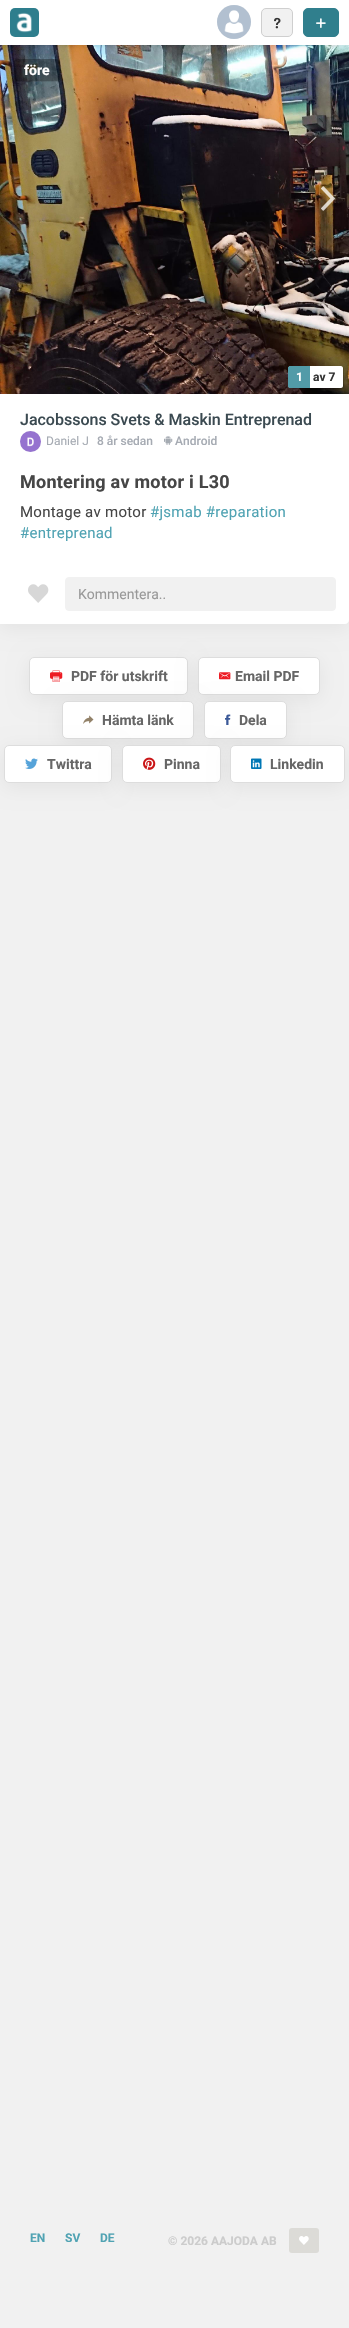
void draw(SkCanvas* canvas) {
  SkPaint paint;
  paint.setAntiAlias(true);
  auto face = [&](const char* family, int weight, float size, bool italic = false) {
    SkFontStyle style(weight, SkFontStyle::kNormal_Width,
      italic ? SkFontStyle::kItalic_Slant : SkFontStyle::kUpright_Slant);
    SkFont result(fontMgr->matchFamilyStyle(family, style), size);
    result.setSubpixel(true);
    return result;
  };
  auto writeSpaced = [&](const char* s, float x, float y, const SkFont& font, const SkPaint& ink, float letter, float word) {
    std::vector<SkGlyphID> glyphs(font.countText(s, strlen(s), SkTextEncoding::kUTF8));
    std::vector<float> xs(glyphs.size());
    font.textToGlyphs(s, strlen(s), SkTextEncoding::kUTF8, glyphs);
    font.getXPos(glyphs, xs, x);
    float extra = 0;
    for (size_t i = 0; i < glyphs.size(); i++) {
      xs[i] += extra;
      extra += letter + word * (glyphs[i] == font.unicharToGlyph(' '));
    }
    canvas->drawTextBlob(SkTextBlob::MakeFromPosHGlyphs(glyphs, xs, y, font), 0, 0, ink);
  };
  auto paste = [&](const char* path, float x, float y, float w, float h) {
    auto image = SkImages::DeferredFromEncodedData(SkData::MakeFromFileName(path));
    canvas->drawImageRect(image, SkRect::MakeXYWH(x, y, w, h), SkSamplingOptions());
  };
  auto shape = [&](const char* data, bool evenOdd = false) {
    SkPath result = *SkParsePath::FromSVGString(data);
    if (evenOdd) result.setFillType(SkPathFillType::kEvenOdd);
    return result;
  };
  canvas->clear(0xfff1f1f1);
  paint.setColor(0x0f000000);
  paint.setMaskFilter(SkMaskFilter::MakeBlur(kNormal_SkBlurStyle, 10));
  canvas->drawRoundRect(SkRect::MakeXYWH(29, 661, 159, 38), 5, 5, paint);
  paint.setMaskFilter(nullptr);
  paint.setColor(0xffffffff);
  canvas->drawRoundRect(SkRect::MakeXYWH(29.5f, 657.5f, 158, 37), 4.5f, 4.5f, paint);
  paint.setStroke(true);
  paint.setStrokeWidth(1);
  paint.setColor(0xffdddddd);
  canvas->drawRoundRect(SkRect::MakeXYWH(29.5f, 657.5f, 158, 37), 4.5f, 4.5f, paint);
  paint.setStroke(false);
  paint.setColor(0x0f000000);
  paint.setMaskFilter(SkMaskFilter::MakeBlur(kNormal_SkBlurStyle, 10));
  canvas->drawRoundRect(SkRect::MakeXYWH(198, 661, 122, 38), 5, 5, paint);
  paint.setMaskFilter(nullptr);
  paint.setColor(0xffffffff);
  canvas->drawRoundRect(SkRect::MakeXYWH(198.5f, 657.5f, 121, 37), 4.5f, 4.5f, paint);
  paint.setStroke(true);
  paint.setColor(0xffdddddd);
  canvas->drawRoundRect(SkRect::MakeXYWH(198.5f, 657.5f, 121, 37), 4.5f, 4.5f, paint);
  paint.setStroke(false);
  paint.setColor(0x0f000000);
  paint.setMaskFilter(SkMaskFilter::MakeBlur(kNormal_SkBlurStyle, 10));
  canvas->drawRoundRect(SkRect::MakeXYWH(0, 49, 349, 579), 4, 4, paint);
  paint.setMaskFilter(nullptr);
  paint.setColor(0xffffffff);
  canvas->drawPath(shape("M0 45H345C347 45 349 47 349 49V620C349 622 347 624 345 624H0Z"), paint);
  paste("img/5.png", 0, 45, 349, 349);
  paint.setColor(0x33000000);
  paint.setMaskFilter(SkMaskFilter::MakeBlur(kNormal_SkBlurStyle, 2.5f));
  canvas->drawRect(SkRect::MakeXYWH(0, 0, 349, 45), paint);
  paint.setMaskFilter(nullptr);
  paint.setColor(0xffffffff);
  canvas->drawRect(SkRect::MakeXYWH(0, 0, 349, 45), paint);
  paste("img/1.png", 10, 8, 29, 29);
  paint.setColor(0xffeeeeee);
  canvas->drawCircle(234, 22, 17, paint);
  paste("img/2.png", 217, 5, 34, 34);
  paint.setColor(0xfff1f1f1);
  canvas->drawRoundRect(SkRect::MakeXYWH(261.5f, 8.5f, 31, 28), 4.5f, 4.5f, paint);
  paint.setStroke(true);
  paint.setColor(0xffcfcfcf);
  canvas->drawRoundRect(SkRect::MakeXYWH(261.5f, 8.5f, 31, 28), 4.5f, 4.5f, paint);
  paste("img/3.png", 274, 17, 7, 12);
  paint.setStroke(false);
  paint.setColor(0xff307f8d);
  canvas->drawRoundRect(SkRect::MakeXYWH(303.5f, 8.5f, 35, 28), 4.5f, 4.5f, paint);
  paint.setStroke(true);
  canvas->drawRoundRect(SkRect::MakeXYWH(303.5f, 8.5f, 35, 28), 4.5f, 4.5f, paint);
  paste("img/4.png", 316, 18, 10, 10);
  paint.setStroke(false);
  paint.setColor(0x1a000000);
  canvas->drawPath(shape("M15 81C16 81 17 82 18 82H58C60 82 61 81 61 79V63C61 62 60 61 60 60V62V78C60 80 59 81 57 81H17Z"), paint);
  paint.setColor(0x4d000000);
  canvas->drawRoundRect(SkRect::MakeXYWH(14, 59, 46, 22), 3, 3, paint);
  paste("img/6.png", 321, 186, 14, 25);
  paint.setColor(0x26000000);
  canvas->drawPath(shape("M289 388C290 388 291 389 292 389H342C343 389 344 388 344 387V369C344 368 344 367 343 367V380C343 390 344 388 333 388H299C296 388 292 389 289 388Z"), paint);
  paint.setColor(0xffffffff);
  canvas->drawPath(shape("M291 366H341C342 366 343 367 343 368V386C343 387 342 388 341 388H291C289.5 388 288 386.5 288 385V369C288 367.5 289.5 366 291 366Z"), paint);
  paint.setColor(0xff529ba8);
  canvas->drawPath(shape("M290 366H310V388H290C289 388 288 387 288 386V368C288 367 289 366 290 366Z"), paint);
  paint.setColor(0xffeeeeee);
  canvas->drawCircle(30.5f, 441.5f, 10.5f, paint);
  paste("img/7.png", 20, 431, 21, 21);
  paste("img/8.png", 164, 436, 9, 9);
  paste("img/9.png", 28, 584, 21, 19);
  paint.setColor(0xfff1f1f1);
  canvas->drawRoundRect(SkRect::MakeXYWH(65.5f, 577.5f, 270, 33), 3.5f, 3.5f, paint);
  paint.setStroke(true);
  canvas->drawRoundRect(SkRect::MakeXYWH(65.5f, 577.5f, 270, 33), 3.5f, 3.5f, paint);
  paste("img/10.png", 50, 670, 13, 12);
  paste("img/11.png", 219, 672, 12, 8);
  paint.setStroke(false);
  paint.setColor(0x0f000000);
  paint.setMaskFilter(SkMaskFilter::MakeBlur(kNormal_SkBlurStyle, 10));
  canvas->drawRoundRect(SkRect::MakeXYWH(62, 705, 132, 38), 5, 5, paint);
  paint.setMaskFilter(nullptr);
  paint.setColor(0xffffffff);
  canvas->drawRoundRect(SkRect::MakeXYWH(62.5f, 701.5f, 131, 37), 4.5f, 4.5f, paint);
  paint.setStroke(true);
  paint.setColor(0xffdddddd);
  canvas->drawRoundRect(SkRect::MakeXYWH(62.5f, 701.5f, 131, 37), 4.5f, 4.5f, paint);
  paste("img/12.png", 83, 715, 11, 9);
  paint.setStroke(false);
  paint.setColor(0x0f000000);
  paint.setMaskFilter(SkMaskFilter::MakeBlur(kNormal_SkBlurStyle, 10));
  canvas->drawRoundRect(SkRect::MakeXYWH(204, 705, 83, 38), 5, 5, paint);
  paint.setMaskFilter(nullptr);
  paint.setColor(0xffffffff);
  canvas->drawRoundRect(SkRect::MakeXYWH(204.5f, 701.5f, 82, 37), 4.5f, 4.5f, paint);
  paint.setStroke(true);
  paint.setColor(0xffdddddd);
  canvas->drawRoundRect(SkRect::MakeXYWH(204.5f, 701.5f, 82, 37), 4.5f, 4.5f, paint);
  paste("img/13.png", 225, 714, 6, 11);
  paint.setStroke(false);
  paint.setColor(0x0f000000);
  paint.setMaskFilter(SkMaskFilter::MakeBlur(kNormal_SkBlurStyle, 10));
  canvas->drawRoundRect(SkRect::MakeXYWH(4, 749, 108, 38), 5, 5, paint);
  paint.setMaskFilter(nullptr);
  paint.setColor(0xffffffff);
  canvas->drawRoundRect(SkRect::MakeXYWH(4.5f, 745.5f, 107, 37), 4.5f, 4.5f, paint);
  paint.setStroke(true);
  paint.setColor(0xffdddddd);
  canvas->drawRoundRect(SkRect::MakeXYWH(4.5f, 745.5f, 107, 37), 4.5f, 4.5f, paint);
  paste("img/14.png", 25, 758, 13, 11);
  paint.setStroke(false);
  paint.setColor(0x0f000000);
  paint.setMaskFilter(SkMaskFilter::MakeBlur(kNormal_SkBlurStyle, 10));
  canvas->drawRoundRect(SkRect::MakeXYWH(122, 749, 99, 38), 5, 5, paint);
  paint.setMaskFilter(nullptr);
  paint.setColor(0xffffffff);
  canvas->drawRoundRect(SkRect::MakeXYWH(122.5f, 745.5f, 98, 37), 4.5f, 4.5f, paint);
  paint.setStroke(true);
  paint.setColor(0xffdddddd);
  canvas->drawRoundRect(SkRect::MakeXYWH(122.5f, 745.5f, 98, 37), 4.5f, 4.5f, paint);
  paste("img/15.png", 143, 757, 13, 13);
  paint.setStroke(false);
  paint.setColor(0x0f000000);
  paint.setMaskFilter(SkMaskFilter::MakeBlur(kNormal_SkBlurStyle, 10));
  canvas->drawRoundRect(SkRect::MakeXYWH(230, 749, 115, 38), 5, 5, paint);
  paint.setMaskFilter(nullptr);
  paint.setColor(0xffffffff);
  canvas->drawRoundRect(SkRect::MakeXYWH(230.5f, 745.5f, 114, 37), 4.5f, 4.5f, paint);
  paint.setStroke(true);
  paint.setColor(0xffdddddd);
  canvas->drawRoundRect(SkRect::MakeXYWH(230.5f, 745.5f, 114, 37), 4.5f, 4.5f, paint);
  paste("img/16.png", 251, 758, 11, 11);
  paint.setStroke(false);
  paint.setColor(0xffdcdbd7);
  canvas->drawRoundRect(SkRect::MakeXYWH(289, 2228, 30, 25), 3, 3, paint);
  paste("img/17.png", 299, 2236, 10, 9);
  auto f0 = face("Roboto", 700, 14);
  paint.setColor(0xffffffff);
  canvas->drawString("före", 24, 75, f0, paint);
  auto f1 = face("Roboto", 700, 12);
  canvas->drawString("1", 296, 381, f1, paint);
  paint.setColor(0xff333333);
  canvas->drawString("av 7", 313, 381, f1, paint);
  auto f2 = face("Roboto", 500, 16);
  paint.setColor(0xff3b4a51);
  canvas->drawString("Jacobssons Svets & Maskin Entreprenad", 20, 425, f2, paint);
  auto f3 = face("Roboto", 400, 12);
  paint.setColor(0xffa6abb3);
  canvas->drawString("Daniel J", 46, 445, f3, paint);
  auto f4 = face("Roboto", 500, 12);
  canvas->drawString("8 år sedan", 97, 445, f4, paint);
  canvas->drawString("Android", 175, 445, f4, paint);
  auto f5 = face("Roboto", 700, 18);
  paint.setColor(0xff464646);
  writeSpaced("Montering av motor i L30", 20, 488, f5, paint, 0.25f, 0);
  auto f6 = face("Roboto", 400, 15);
  writeSpaced("Montage av motor", 20, 517, f6, paint, 0.25f, 0);
  paint.setColor(0xff50a3b3);
  writeSpaced("#jsmab #reparation", 150, 517, f6, paint, 0.25f, 0);
  writeSpaced("#entreprenad", 20, 538, f6, paint, 0.25f, 0);
  auto f7 = face("Roboto", 400, 14);
  paint.setColor(0xff999999);
  canvas->drawString("Kommentera..", 78, 599, f7, paint);
  paint.setColor(0xff666666);
  {
    const struct { const char* s; float x, y; } items[] = {
      {"PDF för utskrift", 71, 681},
      {"Email PDF", 235, 681},
      {"Hämta länk", 102, 725},
      {"Dela", 239, 725},
      {"Twittra", 47, 769},
      {"Pinna", 164, 769},
      {"Linkedin", 270, 769},
    };
    for (auto [s, x, y] : items) {
      canvas->drawString(s, x, y, f0, paint);
    }
  }
  paint.setColor(0xff50a3b3);
  {
    const struct { const char* s; float x, y; } items[] = {
      {"EN", 30, 2242},
      {"SV", 65, 2242},
      {"DE", 100, 2242},
    };
    for (auto [s, x, y] : items) {
      canvas->drawString(s, x, y, f1, paint);
    }
  }
  paint.setColor(0xffcccccc);
  canvas->drawString("© 2026 AAJODA AB", 168, 2245, f1, paint);
}
